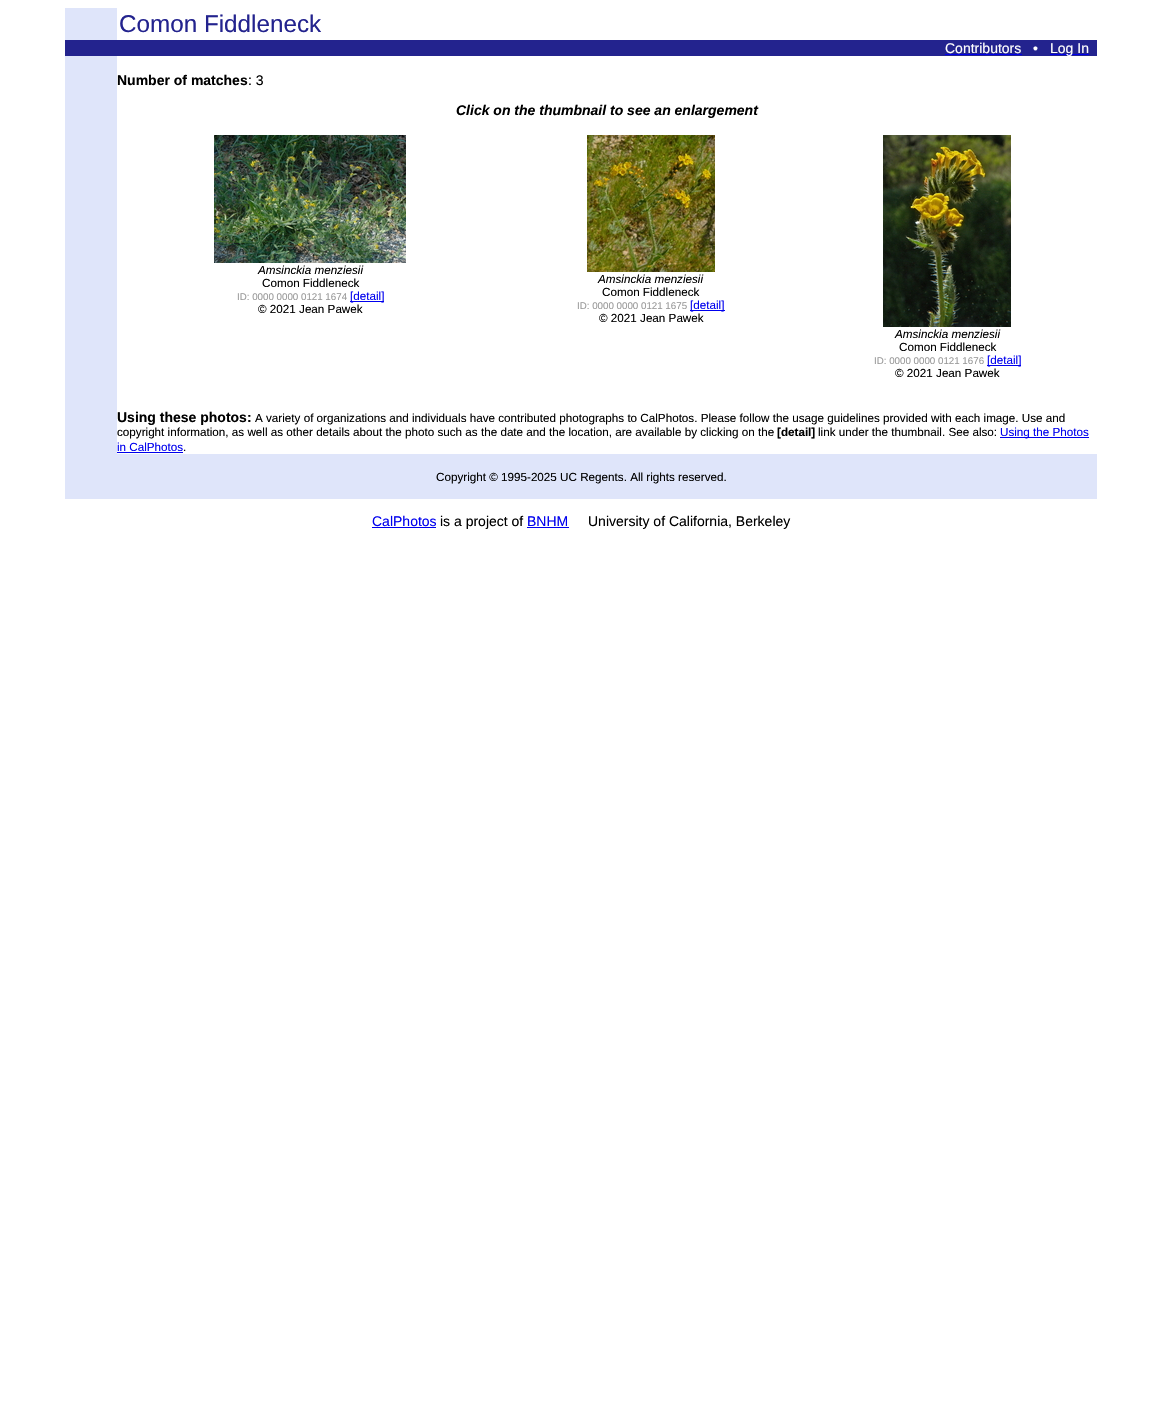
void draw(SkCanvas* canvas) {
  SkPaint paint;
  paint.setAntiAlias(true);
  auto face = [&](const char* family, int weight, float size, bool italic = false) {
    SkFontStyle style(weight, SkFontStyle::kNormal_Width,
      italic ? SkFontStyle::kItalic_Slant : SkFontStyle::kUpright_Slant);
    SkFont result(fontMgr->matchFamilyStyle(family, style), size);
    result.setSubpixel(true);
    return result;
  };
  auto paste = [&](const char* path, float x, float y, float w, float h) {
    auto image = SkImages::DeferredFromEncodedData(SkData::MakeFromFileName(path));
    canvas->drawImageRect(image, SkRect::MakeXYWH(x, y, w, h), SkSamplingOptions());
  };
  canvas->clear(0xffffffff);
  {
    const struct { float x, y, w, h; SkColor color; } items[] = {
      {65, 8, 52, 32, 0xffdfe5fa},
      {65, 40, 1032, 16, 0xff23238e},
      {945, 54, 77, 1, 0xff0000ee},
      {1050, 54, 39, 1, 0xff0000ee},
      {65, 56, 52, 398, 0xffdfe5fa},
    };
    for (auto [x, y, w, h, color] : items) {
      paint.setColor(color);
      canvas->drawRect(SkRect::MakeXYWH(x, y, w, h), paint);
    }
  }
  paste("img/1.png", 214, 135, 192, 128);
  paint.setColor(0xff0000ee);
  canvas->drawRect(SkRect::MakeXYWH(350, 301, 34, 1), paint);
  paste("img/2.png", 587, 135, 128, 137);
  canvas->drawRect(SkRect::MakeXYWH(690, 310, 35, 1), paint);
  paste("img/3.png", 883, 135, 128, 192);
  {
    const struct { float x, y, w, h; SkColor color; } items[] = {
      {987, 365, 34, 1, 0xff0000ee},
      {1000, 437, 89, 1, 0xff0000ee},
      {117, 452, 66, 1, 0xff0000ee},
      {65, 454, 1032, 45, 0xffdfe5fa},
      {372, 527, 64, 1, 0xff0000ee},
      {527, 527, 42, 1, 0xff0000ee},
    };
    for (auto [x, y, w, h, color] : items) {
      paint.setColor(color);
      canvas->drawRect(SkRect::MakeXYWH(x, y, w, h), paint);
    }
  }
  auto f0 = face("Liberation Sans", 400, 24.25f);
  paint.setColor(0xff23238e);
  canvas->drawString("Comon Fiddleneck", 119, 32, f0, paint);
  auto f1 = face("Liberation Sans", 400, 14);
  paint.setColor(0xffffffff);
  {
    const struct { const char* s; float x, y; } items[] = {
      {"Contributors", 945, 53},
      {"•", 1033, 53},
      {"Log In", 1050, 53},
    };
    for (auto [s, x, y] : items) {
      canvas->drawString(s, x, y, f1, paint);
    }
  }
  auto f2 = face("Liberation Sans", 700, 14);
  paint.setColor(0xff000000);
  canvas->drawString("Number of matches", 117, 85, f2, paint);
  canvas->drawString(": 3", 248, 85, f1, paint);
  auto f3 = face("Liberation Sans", 700, 14, true);
  canvas->drawString("Click on the thumbnail to see an enlargement", 456, 115, f3, paint);
  auto f4 = face("Liberation Sans", 400, 11.67f, true);
  canvas->drawString("Amsinckia menziesii", 258, 274, f4, paint);
  auto f5 = face("Liberation Sans", 400, 11.67f);
  canvas->drawString("Comon Fiddleneck", 262, 287, f5, paint);
  auto f6 = face("Liberation Sans", 400, 9.75f);
  paint.setColor(0xff999999);
  canvas->drawString("ID: 0000 0000 0121 1674", 237, 300, f6, paint);
  paint.setColor(0xff0000ee);
  canvas->drawString("[detail]", 350, 300, f5, paint);
  paint.setColor(0xff000000);
  canvas->drawString("© 2021 Jean Pawek", 258, 313, f5, paint);
  canvas->drawString("Amsinckia menziesii", 598, 283, f4, paint);
  canvas->drawString("Comon Fiddleneck", 602, 296, f5, paint);
  paint.setColor(0xff999999);
  canvas->drawString("ID: 0000 0000 0121 1675", 577, 309, f6, paint);
  paint.setColor(0xff0000ee);
  canvas->drawString("[detail]", 690, 309, f5, paint);
  paint.setColor(0xff000000);
  canvas->drawString("© 2021 Jean Pawek", 599, 322, f5, paint);
  canvas->drawString("Amsinckia menziesii", 895, 338, f4, paint);
  canvas->drawString("Comon Fiddleneck", 899, 351, f5, paint);
  paint.setColor(0xff999999);
  canvas->drawString("ID: 0000 0000 0121 1676", 874, 364, f6, paint);
  paint.setColor(0xff0000ee);
  canvas->drawString("[detail]", 987, 364, f5, paint);
  paint.setColor(0xff000000);
  canvas->drawString("© 2021 Jean Pawek", 895, 377, f5, paint);
  canvas->drawString("Using these photos:", 117, 422, f2, paint);
  canvas->drawString("A variety of organizations and individuals have contributed photographs to CalPhotos. Please follow the usage guidelines provided with each image. Use and", 255, 422, f5, paint);
  canvas->drawString("copyright information, as well as other details about the photo such as the date and the location, are available by clicking on the", 117, 436, f5, paint);
  auto f7 = face("Liberation Sans", 700, 11.67f);
  canvas->drawString("[detail]", 777, 436, f7, paint);
  canvas->drawString("link under the thumbnail. See also:", 818, 436, f5, paint);
  paint.setColor(0xff0000ee);
  canvas->drawString("Using the Photos", 1000, 436, f5, paint);
  canvas->drawString("in CalPhotos", 117, 451, f5, paint);
  paint.setColor(0xff000000);
  canvas->drawString(".", 183, 451, f5, paint);
  canvas->drawString("Copyright © 1995-2025 UC Regents. All rights reserved.", 436, 481, f5, paint);
  paint.setColor(0xff0000ee);
  canvas->drawString("CalPhotos", 372, 526, f1, paint);
  paint.setColor(0xff000000);
  canvas->drawString("is a project of", 440, 526, f1, paint);
  paint.setColor(0xff0000ee);
  canvas->drawString("BNHM", 527, 526, f1, paint);
  paint.setColor(0xff000000);
  canvas->drawString("University of California, Berkeley", 588, 526, f1, paint);
}
